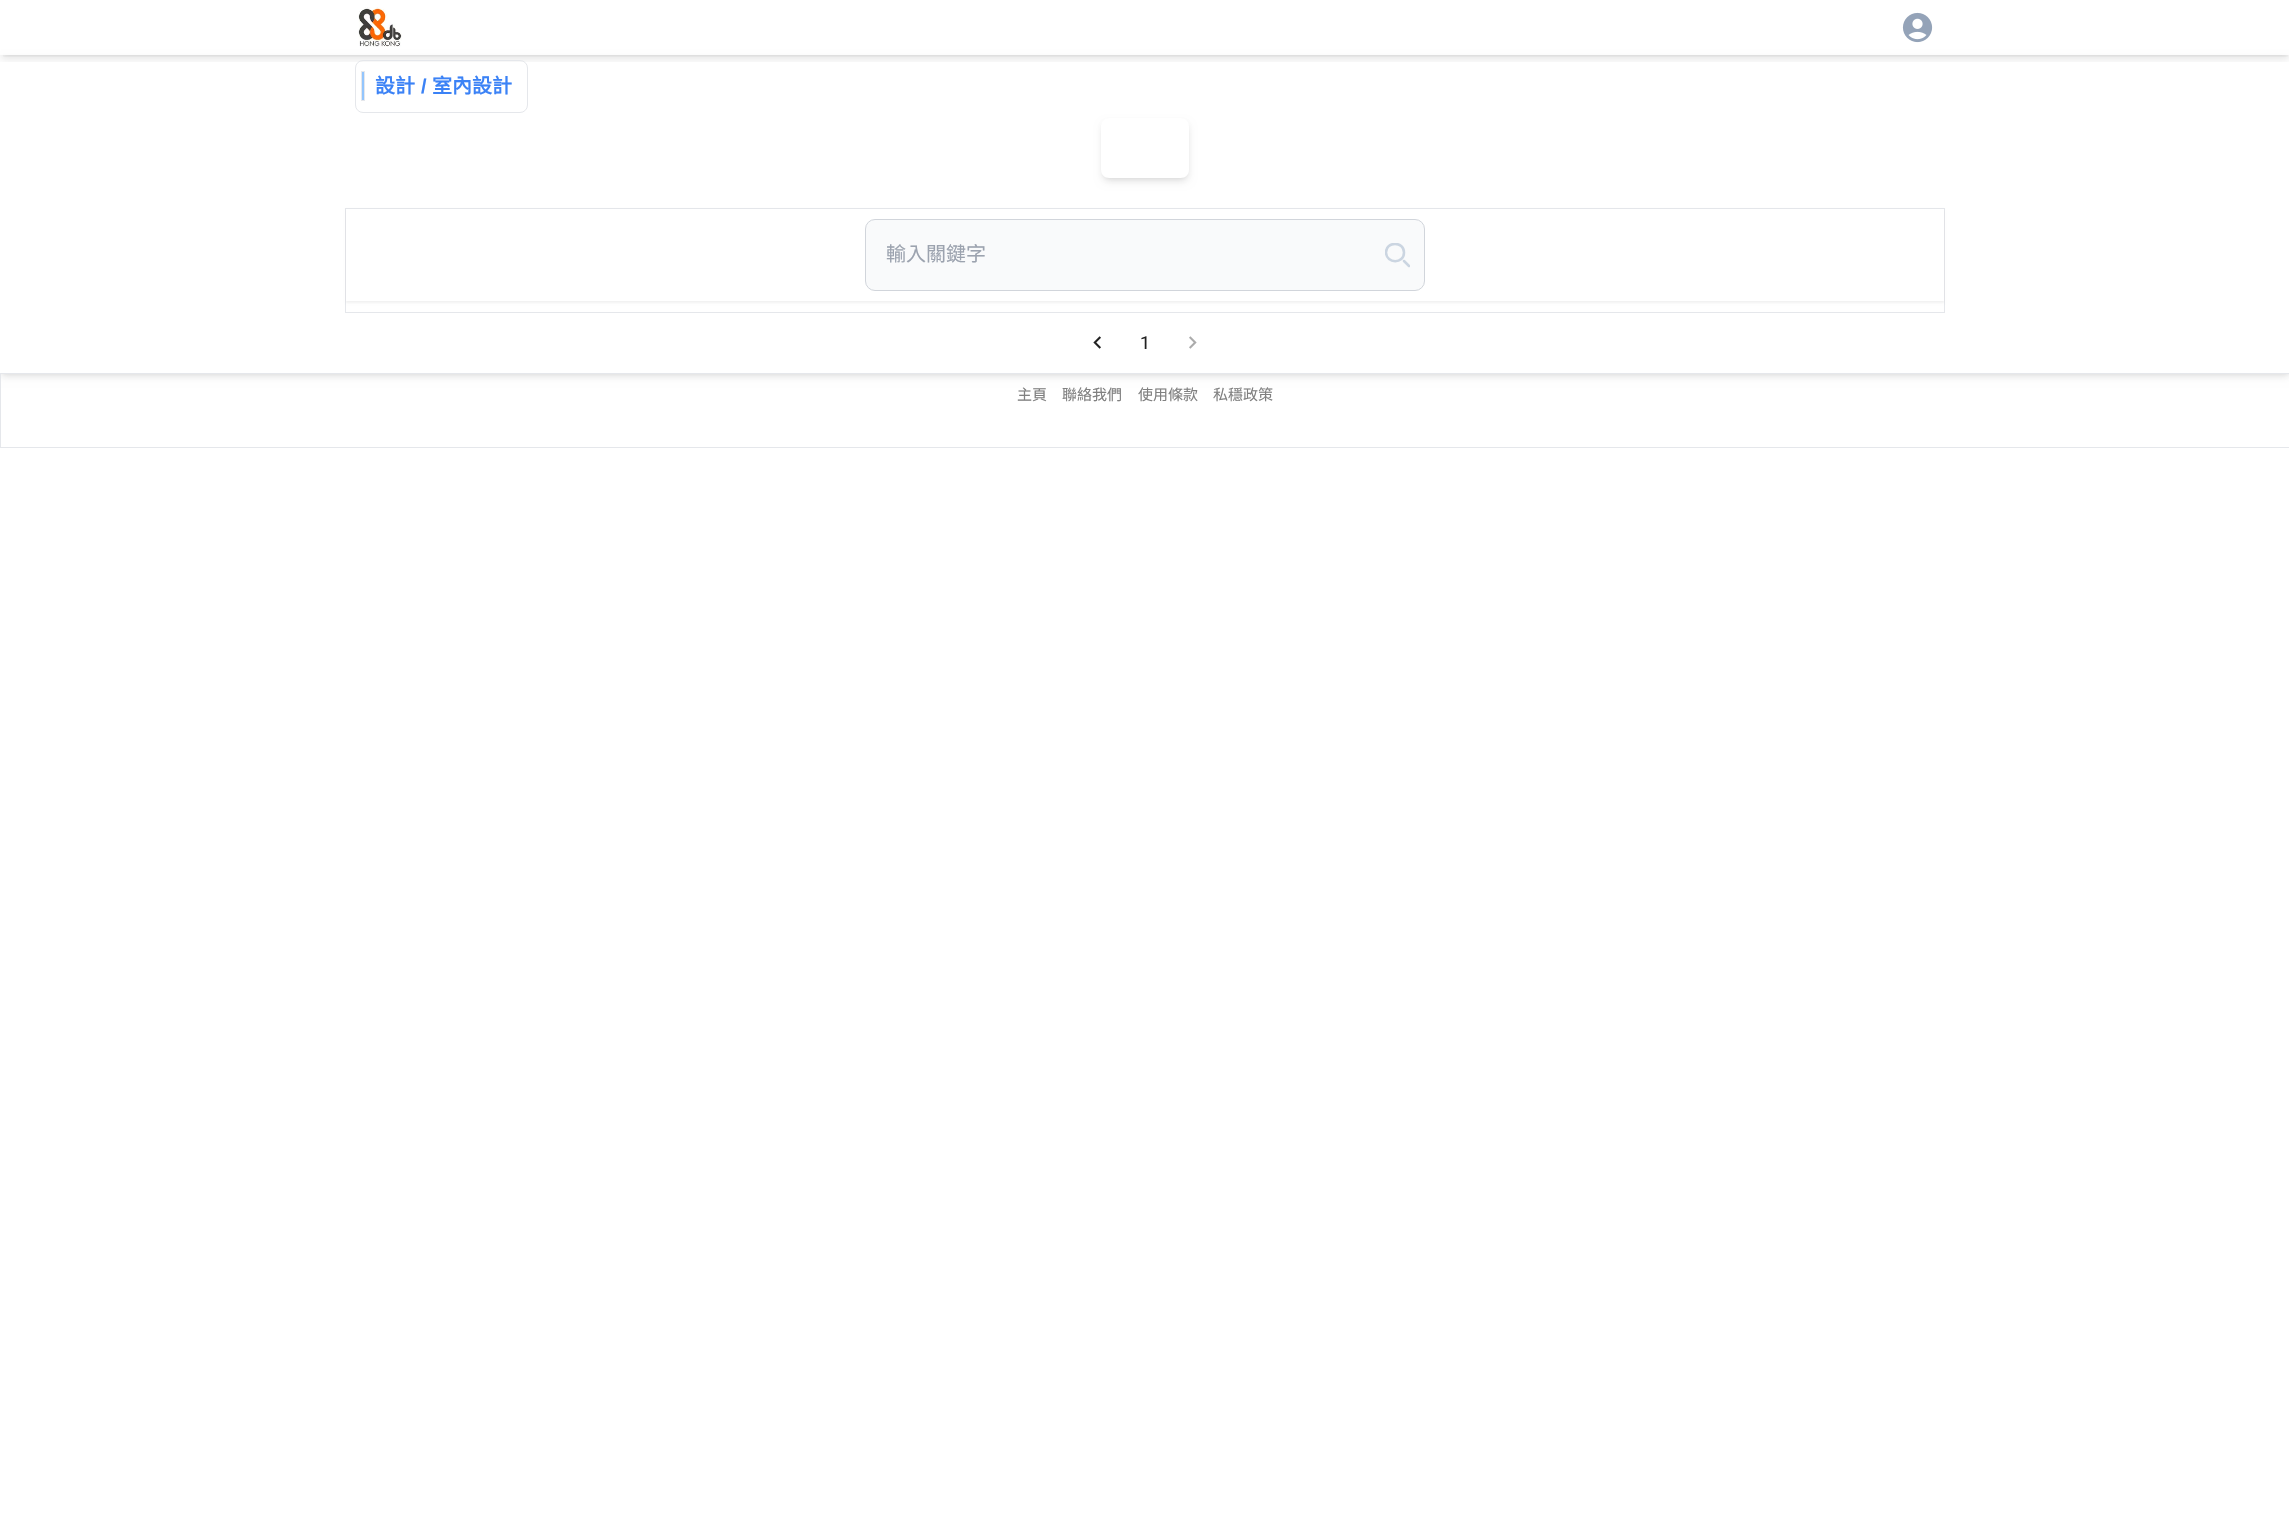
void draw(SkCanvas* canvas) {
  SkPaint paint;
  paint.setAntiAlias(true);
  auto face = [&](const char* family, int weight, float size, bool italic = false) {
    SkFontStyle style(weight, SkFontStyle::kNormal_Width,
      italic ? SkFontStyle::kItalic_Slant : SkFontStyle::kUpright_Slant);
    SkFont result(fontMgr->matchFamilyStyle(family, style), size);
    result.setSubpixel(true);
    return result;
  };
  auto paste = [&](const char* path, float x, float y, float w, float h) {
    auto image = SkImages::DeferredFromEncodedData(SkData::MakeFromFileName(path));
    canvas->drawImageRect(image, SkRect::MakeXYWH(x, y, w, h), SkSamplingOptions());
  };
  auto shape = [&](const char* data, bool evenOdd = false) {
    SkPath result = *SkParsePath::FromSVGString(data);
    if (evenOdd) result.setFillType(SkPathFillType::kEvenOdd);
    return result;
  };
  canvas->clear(0xffffffff);
  canvas->save();
  canvas->clipRect(SkRect::MakeXYWH(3, 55, 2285, 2));
  paint.setColor(0x1a000000);
  paint.setMaskFilter(SkMaskFilter::MakeBlur(kNormal_SkBlurStyle, 2.5f));
  canvas->drawRect(SkRect::MakeXYWH(3, 5, 2285, 50), paint);
  paint.setMaskFilter(nullptr);
  canvas->restore();
  canvas->save();
  canvas->clipRect(SkRect::MakeXYWH(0, 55, 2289, 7));
  paint.setMaskFilter(SkMaskFilter::MakeBlur(kNormal_SkBlurStyle, 4));
  canvas->drawRect(SkRect::MakeXYWH(1, 6, 2288, 53), paint);
  paint.setMaskFilter(nullptr);
  canvas->restore();
  paste("img/1.png", 358, 7, 44, 40);
  paste("img/2.png", 1902, 12, 31, 31);
  canvas->save();
  canvas->clipPath(shape("M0 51H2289V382H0ZM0 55H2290V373H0Z", true), true);
  paint.setMaskFilter(SkMaskFilter::MakeBlur(kNormal_SkBlurStyle, 2.5f));
  canvas->drawRect(SkRect::MakeXYWH(3, 60, 2285, 313), paint);
  paint.setMaskFilter(nullptr);
  canvas->restore();
  canvas->save();
  canvas->clipPath(shape("M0 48H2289V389H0ZM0 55H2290V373H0Z", true), true);
  paint.setMaskFilter(SkMaskFilter::MakeBlur(kNormal_SkBlurStyle, 4));
  canvas->drawRect(SkRect::MakeXYWH(1, 61, 2288, 315), paint);
  paint.setMaskFilter(nullptr);
  canvas->restore();
  paint.setStroke(true);
  paint.setStrokeWidth(1);
  paint.setColor(0xffe5e7eb);
  canvas->drawRoundRect(SkRect::MakeXYWH(355.5f, 60.5f, 172, 52), 7.5f, 7.5f, paint);
  paint.setStroke(false);
  paint.setColor(0xff93c5fd);
  canvas->drawRect(SkRect::MakeXYWH(361.5f, 71.5f, 3, 29), paint);
  paint.setStroke(true);
  paint.setColor(0xffe5e7eb);
  canvas->drawRect(SkRect::MakeXYWH(361.5f, 71.5f, 3, 29), paint);
  canvas->save();
  canvas->clipPath(shape("M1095 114H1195V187H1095ZM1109 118H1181C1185.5 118 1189 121.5 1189 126V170C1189 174.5 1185.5 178 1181 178H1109C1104.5 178 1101 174.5 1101 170V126C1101 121.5 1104.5 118 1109 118Z", true), true);
  paint.setStroke(false);
  paint.setColor(0x1a000000);
  paint.setMaskFilter(SkMaskFilter::MakeBlur(kNormal_SkBlurStyle, 2.5f));
  canvas->drawRoundRect(SkRect::MakeXYWH(1104, 123, 82, 55), 5, 5, paint);
  paint.setMaskFilter(nullptr);
  canvas->restore();
  canvas->save();
  canvas->clipPath(shape("M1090 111H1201V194H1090ZM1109 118H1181C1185.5 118 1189 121.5 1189 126V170C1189 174.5 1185.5 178 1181 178H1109C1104.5 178 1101 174.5 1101 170V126C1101 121.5 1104.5 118 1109 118Z", true), true);
  paint.setMaskFilter(SkMaskFilter::MakeBlur(kNormal_SkBlurStyle, 4));
  canvas->drawRoundRect(SkRect::MakeXYWH(1103, 124, 85, 57), 6, 6, paint);
  paint.setMaskFilter(nullptr);
  canvas->restore();
  paint.setStroke(true);
  paint.setColor(0xffe5e7eb);
  canvas->drawRect(SkRect::MakeXYWH(345.5f, 208.5f, 1599, 104), paint);
  paint.setStroke(false);
  paint.setColor(0x0d000000);
  paint.setMaskFilter(SkMaskFilter::MakeBlur(kNormal_SkBlurStyle, 1));
  canvas->drawRect(SkRect::MakeXYWH(346, 210, 1598, 93), paint);
  paint.setMaskFilter(nullptr);
  paint.setColor(0xffffffff);
  canvas->drawRect(SkRect::MakeXYWH(346, 209, 1598, 92), paint);
  paint.setColor(0xfff9fafb);
  canvas->drawRoundRect(SkRect::MakeXYWH(865.5f, 219.5f, 559, 71), 9.5f, 9.5f, paint);
  paint.setStroke(true);
  paint.setColor(0xffd1d5db);
  canvas->drawRoundRect(SkRect::MakeXYWH(865.5f, 219.5f, 559, 71), 9.5f, 9.5f, paint);
  canvas->save();
  canvas->clipRect(SkRect::MakeXYWH(1385, 243, 25, 25));
  paint.setStrokeWidth(2.5f);
  paint.setStrokeCap(SkPaint::kRound_Cap);
  paint.setStrokeJoin(SkPaint::kRound_Join);
  paint.setColor(0xffcbd5e1);
  canvas->drawPath(shape("M1409 266L1404 261M1404 252.5C1404 264 1386.5 264 1386 252.5C1386 241 1404 241 1404 252.5Z"), paint);
  canvas->restore();
  paste("img/3.png", 1093, 336, 8, 13);
  paste("img/4.png", 1189, 336, 8, 13);
  paint.setStrokeWidth(1);
  paint.setStrokeCap(SkPaint::kButt_Cap);
  paint.setStrokeJoin(SkPaint::kMiter_Join);
  paint.setColor(0xffe5e7eb);
  canvas->drawRect(SkRect::MakeXYWH(0.5f, 373.5f, 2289, 74), paint);
  auto f0 = face("Noto Sans CJK HK", 700, 20);
  paint.setStroke(false);
  paint.setColor(0xff3b82f6);
  canvas->drawString("設計", 375, 93, f0, paint);
  auto f1 = face("Liberation Sans", 700, 20);
  canvas->drawString("/", 421, 93, f1, paint);
  canvas->drawString("室內設計", 432, 93, f0, paint);
  auto f2 = face("Noto Sans CJK HK", 400, 20);
  paint.setColor(0xff9ca3af);
  canvas->drawString("輸入關鍵字", 886, 261, f2, paint);
  auto f3 = face("Roboto", 400, 18);
  paint.setColor(0xff212121);
  canvas->drawString("1", 1140, 349, f3, paint);
  auto f4 = face("Noto Sans CJK HK", 400, 15);
  paint.setColor(0xff808080);
  {
    const struct { const char* s; float x, y; } items[] = {
      {"主頁", 1017, 400},
      {"聯絡我們", 1062, 400},
      {"使用條款", 1138, 400},
      {"私穩政策", 1213, 400},
    };
    for (auto [s, x, y] : items) {
      canvas->drawString(s, x, y, f4, paint);
    }
  }
}
